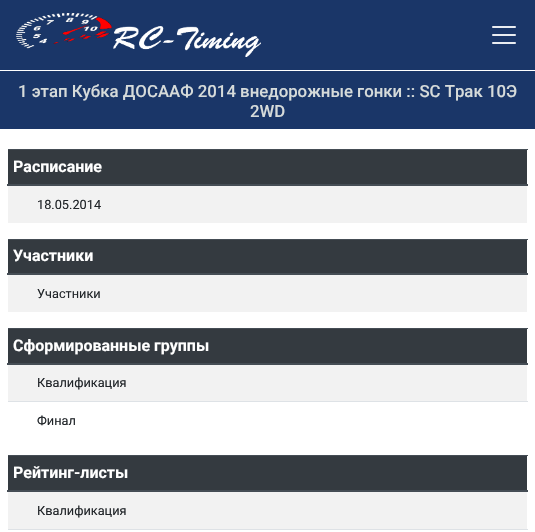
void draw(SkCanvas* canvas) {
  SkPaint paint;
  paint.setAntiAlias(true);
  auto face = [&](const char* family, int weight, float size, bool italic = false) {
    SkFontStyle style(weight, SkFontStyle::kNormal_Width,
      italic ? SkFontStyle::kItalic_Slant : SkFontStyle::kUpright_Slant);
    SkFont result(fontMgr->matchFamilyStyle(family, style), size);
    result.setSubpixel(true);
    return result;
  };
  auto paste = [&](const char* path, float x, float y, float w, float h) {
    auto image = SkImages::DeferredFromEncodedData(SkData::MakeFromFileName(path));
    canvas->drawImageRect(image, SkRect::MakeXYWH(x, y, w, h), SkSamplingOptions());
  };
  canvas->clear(0xffffffff);
  paint.setColor(0xff1a3668);
  canvas->drawRect(SkRect::MakeXYWH(0, 0, 535, 70), paint);
  paste("img/1.png", 16, 13, 245, 44);
  paste("img/2.png", 492, 26, 24, 18);
  {
    const struct { float x, y, w, h; SkColor color; } items[] = {
      {0, 71, 535, 58, 0xff1a3668},
      {8, 150, 519, 34, 0xff343a40},
      {8, 149, 520, 1, 0xff454d55},
      {7, 184, 521, 2, 0xff454d55},
      {8, 186, 519, 37, 0xfff2f2f2},
      {8, 240, 519, 33, 0xff343a40},
      {8, 239, 520, 1, 0xff454d55},
      {7, 273, 521, 2, 0xff454d55},
      {8, 275, 519, 37, 0xfff2f2f2},
      {8, 329, 519, 34, 0xff343a40},
      {8, 328, 520, 1, 0xff454d55},
      {7, 363, 521, 2, 0xff454d55},
      {8, 365, 519, 36, 0xfff2f2f2},
      {8, 401, 520, 1, 0xffdee2e6},
      {8, 456, 519, 34, 0xff343a40},
      {8, 455, 520, 1, 0xff454d55},
      {7, 490, 521, 2, 0xff454d55},
      {8, 492, 519, 37, 0xfff2f2f2},
      {8, 529, 520, 1, 0xffdee2e6},
    };
    for (auto [x, y, w, h, color] : items) {
      paint.setColor(color);
      canvas->drawRect(SkRect::MakeXYWH(x, y, w, h), paint);
    }
  }
  auto f0 = face("Roboto", 500, 16.8f);
  paint.setColor(0xffd6dbda);
  canvas->drawString("1 этап Кубка ДОСААФ 2014 внедорожные гонки :: SC Трак 10Э", 18, 97, f0, paint);
  canvas->drawString("2WD", 250, 117, f0, paint);
  auto f1 = face("Roboto", 700, 16);
  paint.setColor(0xffffffff);
  canvas->drawString("Расписание", 13, 172, f1, paint);
  auto f2 = face("Roboto", 400, 12.75f);
  paint.setColor(0xff212529);
  canvas->drawString("18.05.2014", 37, 209, f2, paint);
  paint.setColor(0xffffffff);
  canvas->drawString("Участники", 13, 261, f1, paint);
  paint.setColor(0xff212529);
  canvas->drawString("Участники", 37, 298, f2, paint);
  paint.setColor(0xffffffff);
  canvas->drawString("Сформированные группы", 13, 351, f1, paint);
  paint.setColor(0xff212529);
  canvas->drawString("Квалификация", 37, 387, f2, paint);
  canvas->drawString("Финал", 37, 425, f2, paint);
  paint.setColor(0xffffffff);
  canvas->drawString("Рейтинг-листы", 13, 478, f1, paint);
  paint.setColor(0xff212529);
  canvas->drawString("Квалификация", 37, 515, f2, paint);
}
